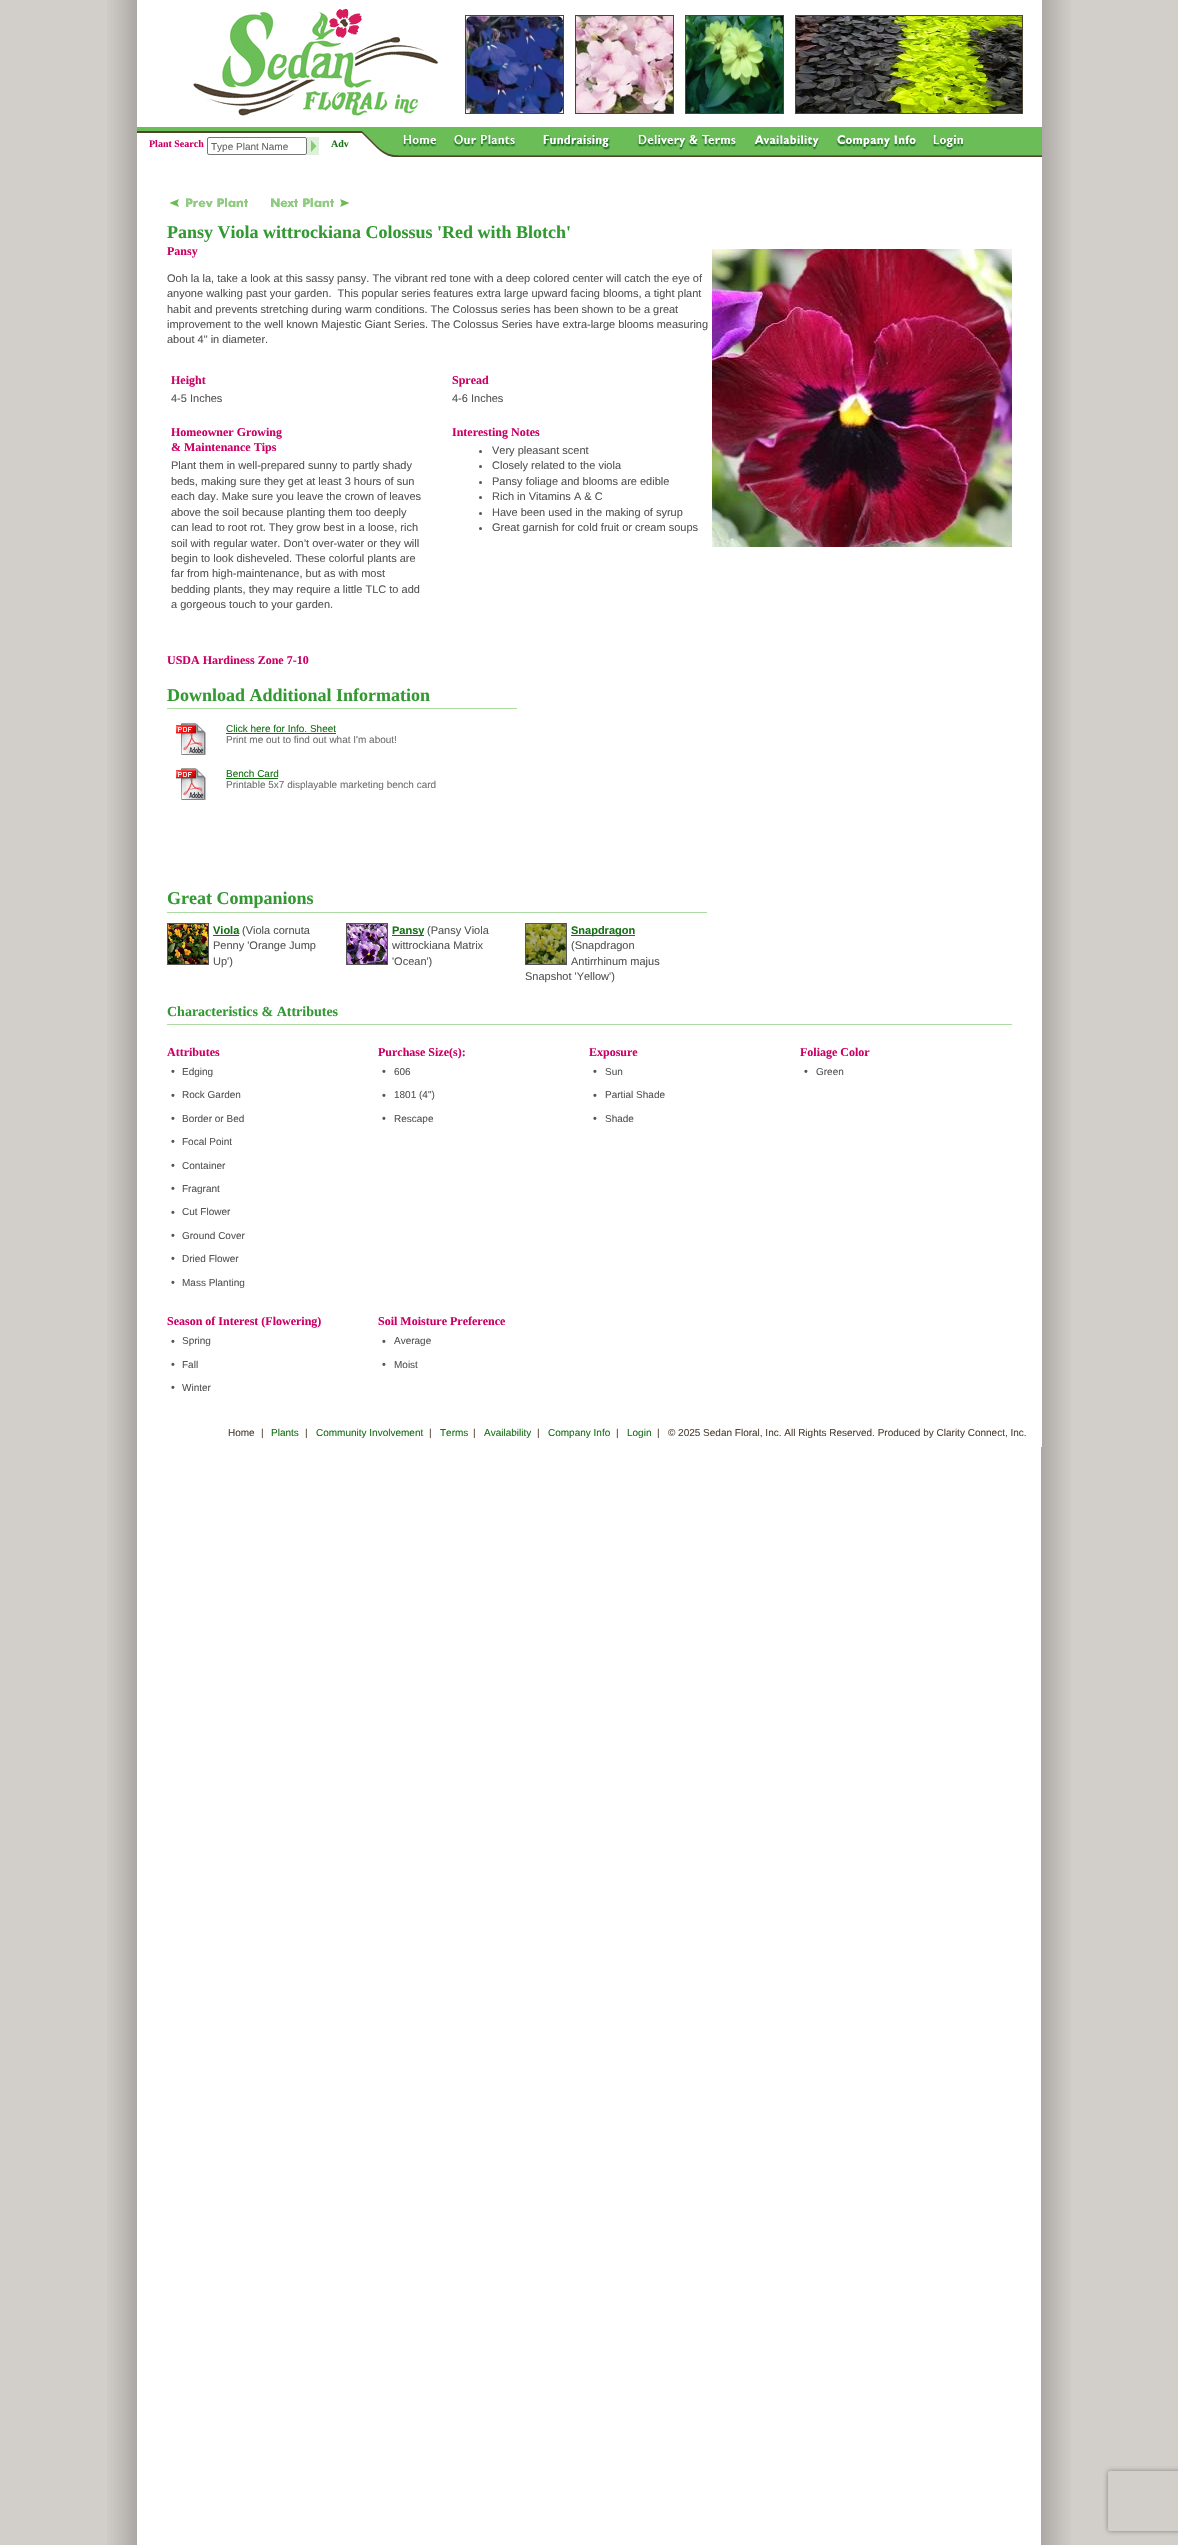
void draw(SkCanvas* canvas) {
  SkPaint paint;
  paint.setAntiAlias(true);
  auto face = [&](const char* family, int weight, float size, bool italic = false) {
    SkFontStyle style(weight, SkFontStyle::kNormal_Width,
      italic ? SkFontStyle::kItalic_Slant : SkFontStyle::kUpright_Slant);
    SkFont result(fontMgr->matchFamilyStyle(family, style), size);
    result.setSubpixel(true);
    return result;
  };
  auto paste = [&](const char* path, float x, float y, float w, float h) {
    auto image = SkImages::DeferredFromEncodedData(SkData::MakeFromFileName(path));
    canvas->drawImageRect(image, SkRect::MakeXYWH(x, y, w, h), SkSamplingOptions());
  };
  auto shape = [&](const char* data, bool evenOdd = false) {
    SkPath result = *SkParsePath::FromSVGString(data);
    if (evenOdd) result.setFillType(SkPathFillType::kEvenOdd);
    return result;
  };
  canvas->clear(0xffd2cfca);
  paste("img/1.png", 107, 0, 964, 2545);
  paint.setColor(0xffffffff);
  canvas->drawRect(SkRect::MakeXYWH(1041, 0, 1, 1447), paint);
  paste("img/2.png", 193, 8, 245, 108);
  paint.setStroke(true);
  paint.setStrokeWidth(1);
  paint.setColor(0xff4d4435);
  canvas->drawRect(SkRect::MakeXYWH(465.5f, 15.5f, 98, 98), paint);
  paste("img/3.png", 466, 16, 97, 97);
  canvas->drawRect(SkRect::MakeXYWH(575.5f, 15.5f, 98, 98), paint);
  paste("img/4.png", 576, 16, 97, 97);
  canvas->drawRect(SkRect::MakeXYWH(685.5f, 15.5f, 98, 98), paint);
  paste("img/5.png", 686, 16, 97, 97);
  canvas->drawRect(SkRect::MakeXYWH(795.5f, 15.5f, 227, 98), paint);
  paste("img/6.png", 796, 16, 226, 97);
  paste("img/7.png", 137, 127, 264, 30);
  paint.setColor(0xff767676);
  canvas->drawRoundRect(SkRect::MakeXYWH(207.5f, 137.5f, 99, 17), 1.5f, 1.5f, paint);
  paste("img/8.png", 307, 137, 12, 18);
  paste("img/9.png", 401, 127, 37, 30);
  paste("img/10.png", 438, 127, 14, 30);
  paste("img/11.png", 452, 127, 65, 30);
  paste("img/12.png", 517, 127, 15, 30);
  paste("img/13.png", 532, 127, 90, 30);
  paste("img/12.png", 622, 127, 15, 30);
  paste("img/14.png", 637, 127, 101, 30);
  paste("img/12.png", 738, 127, 15, 30);
  paste("img/15.png", 753, 127, 68, 30);
  paste("img/10.png", 821, 127, 14, 30);
  paste("img/16.png", 835, 127, 82, 30);
  paste("img/10.png", 917, 127, 14, 30);
  paste("img/17.png", 931, 127, 36, 30);
  paste("img/18.png", 967, 127, 75, 30);
  paste("img/19.png", 169, 198, 79, 9);
  paste("img/20.png", 271, 198, 79, 9);
  paste("img/21.png", 712, 249, 300, 298);
  paint.setStroke(false);
  paint.setColor(0xff555555);
  canvas->drawCircle(480.5f, 451.5f, 1.5f, paint);
  canvas->drawCircle(480.5f, 466.5f, 1.5f, paint);
  canvas->drawCircle(480.5f, 482.5f, 1.5f, paint);
  canvas->drawCircle(480.5f, 497.5f, 1.5f, paint);
  canvas->drawCircle(480.5f, 513.5f, 1.5f, paint);
  canvas->drawCircle(480.5f, 528.5f, 1.5f, paint);
  paint.setColor(0xffaedaa3);
  canvas->drawRect(SkRect::MakeXYWH(167, 708, 350, 1), paint);
  paste("img/22.png", 176, 723, 30, 32);
  paint.setColor(0xff177117);
  canvas->drawRect(SkRect::MakeXYWH(226, 733, 110, 1), paint);
  paste("img/22.png", 176, 768, 30, 32);
  canvas->drawRect(SkRect::MakeXYWH(226, 778, 52, 1), paint);
  paint.setColor(0xffaedaa3);
  canvas->drawRect(SkRect::MakeXYWH(167, 912, 540, 1), paint);
  paint.setStroke(true);
  paint.setColor(0xff555555);
  canvas->drawRect(SkRect::MakeXYWH(167.5f, 923.5f, 41, 41), paint);
  paste("img/23.png", 168, 924, 40, 40);
  paint.setStroke(false);
  paint.setColor(0xff177117);
  canvas->drawRect(SkRect::MakeXYWH(213, 935, 26, 1), paint);
  paint.setStroke(true);
  paint.setColor(0xff555555);
  canvas->drawRect(SkRect::MakeXYWH(346.5f, 923.5f, 41, 41), paint);
  paste("img/24.png", 347, 924, 40, 40);
  paint.setStroke(false);
  paint.setColor(0xff177117);
  canvas->drawRect(SkRect::MakeXYWH(392, 935, 32, 1), paint);
  paint.setStroke(true);
  paint.setColor(0xff555555);
  canvas->drawRect(SkRect::MakeXYWH(525.5f, 923.5f, 41, 41), paint);
  paste("img/25.png", 526, 924, 40, 40);
  paint.setStroke(false);
  paint.setColor(0xff177117);
  canvas->drawRect(SkRect::MakeXYWH(571, 935, 64, 1), paint);
  paint.setColor(0xffaedaa3);
  canvas->drawRect(SkRect::MakeXYWH(167, 1024, 845, 1), paint);
  canvas->save();
  canvas->clipPath(shape("M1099 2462H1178V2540H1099ZM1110 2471H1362C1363 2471 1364 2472 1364 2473V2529C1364 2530 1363 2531 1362 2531H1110C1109 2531 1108 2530 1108 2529V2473C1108 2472 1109 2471 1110 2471Z", true), true);
  paint.setColor(0xff808080);
  paint.setMaskFilter(SkMaskFilter::MakeBlur(kNormal_SkBlurStyle, 2.5f));
  canvas->drawRoundRect(SkRect::MakeXYWH(1108, 2471, 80, 60), 2, 2, paint);
  paint.setMaskFilter(nullptr);
  canvas->restore();
  auto f0 = face("Liberation Serif", 700, 10);
  paint.setColor(0xffcc0066);
  canvas->drawString("Plant Search", 149, 147, f0, paint);
  auto f1 = face("Liberation Sans", 400, 10);
  paint.setColor(0xff666666);
  canvas->drawString("Type Plant Name", 211, 150, f1, paint);
  paint.setColor(0xff177117);
  canvas->drawString("Adv", 331, 147, f0, paint);
  auto f2 = face("Liberation Serif", 700, 18);
  paint.setColor(0xff339933);
  canvas->drawString("Pansy Viola wittrockiana Colossus 'Red with Blotch'", 167, 238, f2, paint);
  auto f3 = face("Liberation Serif", 700, 12);
  paint.setColor(0xffcc0066);
  canvas->drawString("Pansy", 167, 255, f3, paint);
  auto f4 = face("Liberation Sans", 400, 11);
  paint.setColor(0xff555555);
  {
    const struct { const char* s; float x, y; } items[] = {
      {"Ooh la la, take a look at this sassy pansy. The vibrant red tone with a deep colored center will catch the eye of", 167, 282},
      {"anyone walking past your garden.  This popular series features extra large upward facing blooms, a tight plant", 167, 297},
      {"habit and prevents stretching during warm conditions. The Colossus series has been shown to be a great", 167, 313},
      {"improvement to the well known Majestic Giant Series. The Colossus Series have extra-large blooms measuring", 167, 328},
      {"about 4\" in diameter.", 167, 343},
    };
    for (auto [s, x, y] : items) {
      canvas->drawString(s, x, y, f4, paint);
    }
  }
  paint.setColor(0xffcc0066);
  canvas->drawString("Height", 171, 384, f3, paint);
  paint.setColor(0xff555555);
  canvas->drawString("4-5 Inches", 171, 402, f4, paint);
  paint.setColor(0xffcc0066);
  canvas->drawString("Spread", 452, 384, f3, paint);
  paint.setColor(0xff555555);
  canvas->drawString("4-6 Inches", 452, 402, f4, paint);
  paint.setColor(0xffcc0066);
  canvas->drawString("Homeowner Growing", 171, 436, f3, paint);
  canvas->drawString("& Maintenance Tips", 171, 451, f3, paint);
  paint.setColor(0xff555555);
  {
    const struct { const char* s; float x, y; } items[] = {
      {"Plant them in well-prepared sunny to partly shady", 171, 469},
      {"beds, making sure they get at least 3 hours of sun", 171, 485},
      {"each day. Make sure you leave the crown of leaves", 171, 500},
      {"above the soil because planting them too deeply", 171, 516},
      {"can lead to root rot. They grow best in a loose, rich", 171, 531},
      {"soil with regular water. Don’t over-water or they will", 171, 547},
      {"begin to look disheveled. These colorful plants are", 171, 562},
      {"far from high-maintenance, but as with most", 171, 577},
      {"bedding plants, they may require a little TLC to add", 171, 593},
      {"a gorgeous touch to your garden.", 171, 608},
    };
    for (auto [s, x, y] : items) {
      canvas->drawString(s, x, y, f4, paint);
    }
  }
  paint.setColor(0xffcc0066);
  canvas->drawString("Interesting Notes", 452, 436, f3, paint);
  paint.setColor(0xff555555);
  {
    const struct { const char* s; float x, y; } items[] = {
      {"Very pleasant scent", 492, 454},
      {"Closely related to the viola", 492, 469},
      {"Pansy foliage and blooms are edible", 492, 485},
      {"Rich in Vitamins A & C", 492, 500},
      {"Have been used in the making of syrup", 492, 516},
      {"Great garnish for cold fruit or cream soups", 492, 531},
    };
    for (auto [s, x, y] : items) {
      canvas->drawString(s, x, y, f4, paint);
    }
  }
  paint.setColor(0xffcc0066);
  canvas->drawString("USDA Hardiness Zone 7-10", 167, 664, f3, paint);
  paint.setColor(0xff339933);
  canvas->drawString("Download Additional Information", 167, 701, f2, paint);
  paint.setColor(0xff177117);
  canvas->drawString("Click here for Info. Sheet", 226, 732, f1, paint);
  paint.setColor(0xff717171);
  canvas->drawString("Print me out to find out what I'm about!", 226, 743, f1, paint);
  paint.setColor(0xff177117);
  canvas->drawString("Bench Card", 226, 777, f1, paint);
  paint.setColor(0xff717171);
  canvas->drawString("Printable 5x7 displayable marketing bench card", 226, 788, f1, paint);
  paint.setColor(0xff339933);
  canvas->drawString("Great Companions", 167, 904, f2, paint);
  auto f5 = face("Liberation Sans", 700, 11);
  paint.setColor(0xff177117);
  canvas->drawString("Viola", 213, 934, f5, paint);
  paint.setColor(0xff555555);
  {
    const struct { const char* s; float x, y; } items[] = {
      {"(Viola cornuta", 242, 934},
      {"Penny 'Orange Jump", 213, 949},
      {"Up')", 213, 965},
    };
    for (auto [s, x, y] : items) {
      canvas->drawString(s, x, y, f4, paint);
    }
  }
  paint.setColor(0xff177117);
  canvas->drawString("Pansy", 392, 934, f5, paint);
  paint.setColor(0xff555555);
  {
    const struct { const char* s; float x, y; } items[] = {
      {"(Pansy Viola", 427, 934},
      {"wittrockiana Matrix", 392, 949},
      {"'Ocean')", 392, 965},
    };
    for (auto [s, x, y] : items) {
      canvas->drawString(s, x, y, f4, paint);
    }
  }
  paint.setColor(0xff177117);
  canvas->drawString("Snapdragon", 571, 934, f5, paint);
  paint.setColor(0xff555555);
  {
    const struct { const char* s; float x, y; } items[] = {
      {"(Snapdragon", 571, 949},
      {"Antirrhinum majus", 571, 965},
      {"Snapshot 'Yellow')", 525, 980},
    };
    for (auto [s, x, y] : items) {
      canvas->drawString(s, x, y, f4, paint);
    }
  }
  auto f6 = face("Liberation Serif", 700, 14);
  paint.setColor(0xff339933);
  canvas->drawString("Characteristics & Attributes", 167, 1016, f6, paint);
  paint.setColor(0xffcc0066);
  canvas->drawString("Attributes", 167, 1056, f3, paint);
  paint.setColor(0xff555555);
  canvas->drawString("•", 171, 1075, f4, paint);
  canvas->drawString("Edging", 182, 1075, f1, paint);
  canvas->drawString("•", 171, 1099, f4, paint);
  canvas->drawString("Rock Garden", 182, 1098, f1, paint);
  canvas->drawString("•", 171, 1122, f4, paint);
  canvas->drawString("Border or Bed", 182, 1122, f1, paint);
  canvas->drawString("•", 171, 1145, f4, paint);
  canvas->drawString("Focal Point", 182, 1145, f1, paint);
  canvas->drawString("•", 171, 1169, f4, paint);
  canvas->drawString("Container", 182, 1169, f1, paint);
  canvas->drawString("•", 171, 1192, f4, paint);
  canvas->drawString("Fragrant", 182, 1192, f1, paint);
  canvas->drawString("•", 171, 1216, f4, paint);
  canvas->drawString("Cut Flower", 182, 1215, f1, paint);
  canvas->drawString("•", 171, 1239, f4, paint);
  canvas->drawString("Ground Cover", 182, 1239, f1, paint);
  canvas->drawString("•", 171, 1262, f4, paint);
  canvas->drawString("Dried Flower", 182, 1262, f1, paint);
  canvas->drawString("•", 171, 1286, f4, paint);
  canvas->drawString("Mass Planting", 182, 1286, f1, paint);
  paint.setColor(0xffcc0066);
  canvas->drawString("Purchase Size(s):", 378, 1056, f3, paint);
  paint.setColor(0xff555555);
  canvas->drawString("•", 382, 1075, f4, paint);
  canvas->drawString("606", 394, 1075, f1, paint);
  canvas->drawString("•", 382, 1099, f4, paint);
  canvas->drawString("1801 (4\")", 394, 1098, f1, paint);
  canvas->drawString("•", 382, 1122, f4, paint);
  canvas->drawString("Rescape", 394, 1122, f1, paint);
  paint.setColor(0xffcc0066);
  canvas->drawString("Exposure", 589, 1056, f3, paint);
  paint.setColor(0xff555555);
  canvas->drawString("•", 593, 1075, f4, paint);
  canvas->drawString("Sun", 605, 1075, f1, paint);
  canvas->drawString("•", 593, 1099, f4, paint);
  canvas->drawString("Partial Shade", 605, 1098, f1, paint);
  canvas->drawString("•", 593, 1122, f4, paint);
  canvas->drawString("Shade", 605, 1122, f1, paint);
  paint.setColor(0xffcc0066);
  canvas->drawString("Foliage Color", 800, 1056, f3, paint);
  paint.setColor(0xff555555);
  canvas->drawString("•", 804, 1075, f4, paint);
  canvas->drawString("Green", 816, 1075, f1, paint);
  paint.setColor(0xffcc0066);
  canvas->drawString("Season of Interest (Flowering)", 167, 1325, f3, paint);
  paint.setColor(0xff555555);
  canvas->drawString("•", 171, 1345, f4, paint);
  canvas->drawString("Spring", 182, 1344, f1, paint);
  canvas->drawString("•", 171, 1368, f4, paint);
  canvas->drawString("Fall", 182, 1368, f1, paint);
  canvas->drawString("•", 171, 1391, f4, paint);
  canvas->drawString("Winter", 182, 1391, f1, paint);
  paint.setColor(0xffcc0066);
  canvas->drawString("Soil Moisture Preference", 378, 1325, f3, paint);
  paint.setColor(0xff555555);
  canvas->drawString("•", 382, 1345, f4, paint);
  canvas->drawString("Average", 394, 1344, f1, paint);
  canvas->drawString("•", 382, 1368, f4, paint);
  canvas->drawString("Moist", 394, 1368, f1, paint);
  paint.setColor(0xff514134);
  canvas->drawString("Home", 228, 1436, f1, paint);
  canvas->drawString("|", 261, 1436, f1, paint);
  paint.setColor(0xff177117);
  canvas->drawString("Plants", 271, 1436, f1, paint);
  paint.setColor(0xff514134);
  canvas->drawString("|", 305, 1436, f1, paint);
  paint.setColor(0xff177117);
  canvas->drawString("Community Involvement", 316, 1436, f1, paint);
  paint.setColor(0xff514134);
  canvas->drawString("|", 429, 1436, f1, paint);
  paint.setColor(0xff177117);
  canvas->drawString("Terms", 440, 1436, f1, paint);
  paint.setColor(0xff514134);
  canvas->drawString("|", 473, 1436, f1, paint);
  paint.setColor(0xff177117);
  canvas->drawString("Availability", 484, 1436, f1, paint);
  paint.setColor(0xff514134);
  canvas->drawString("|", 537, 1436, f1, paint);
  paint.setColor(0xff177117);
  canvas->drawString("Company Info", 548, 1436, f1, paint);
  paint.setColor(0xff514134);
  canvas->drawString("|", 616, 1436, f1, paint);
  paint.setColor(0xff177117);
  canvas->drawString("Login", 627, 1436, f1, paint);
  paint.setColor(0xff514134);
  canvas->drawString("|   © 2025 Sedan Floral, Inc. All Rights Reserved. Produced by Clarity Connect, Inc.", 657, 1436, f1, paint);
}
